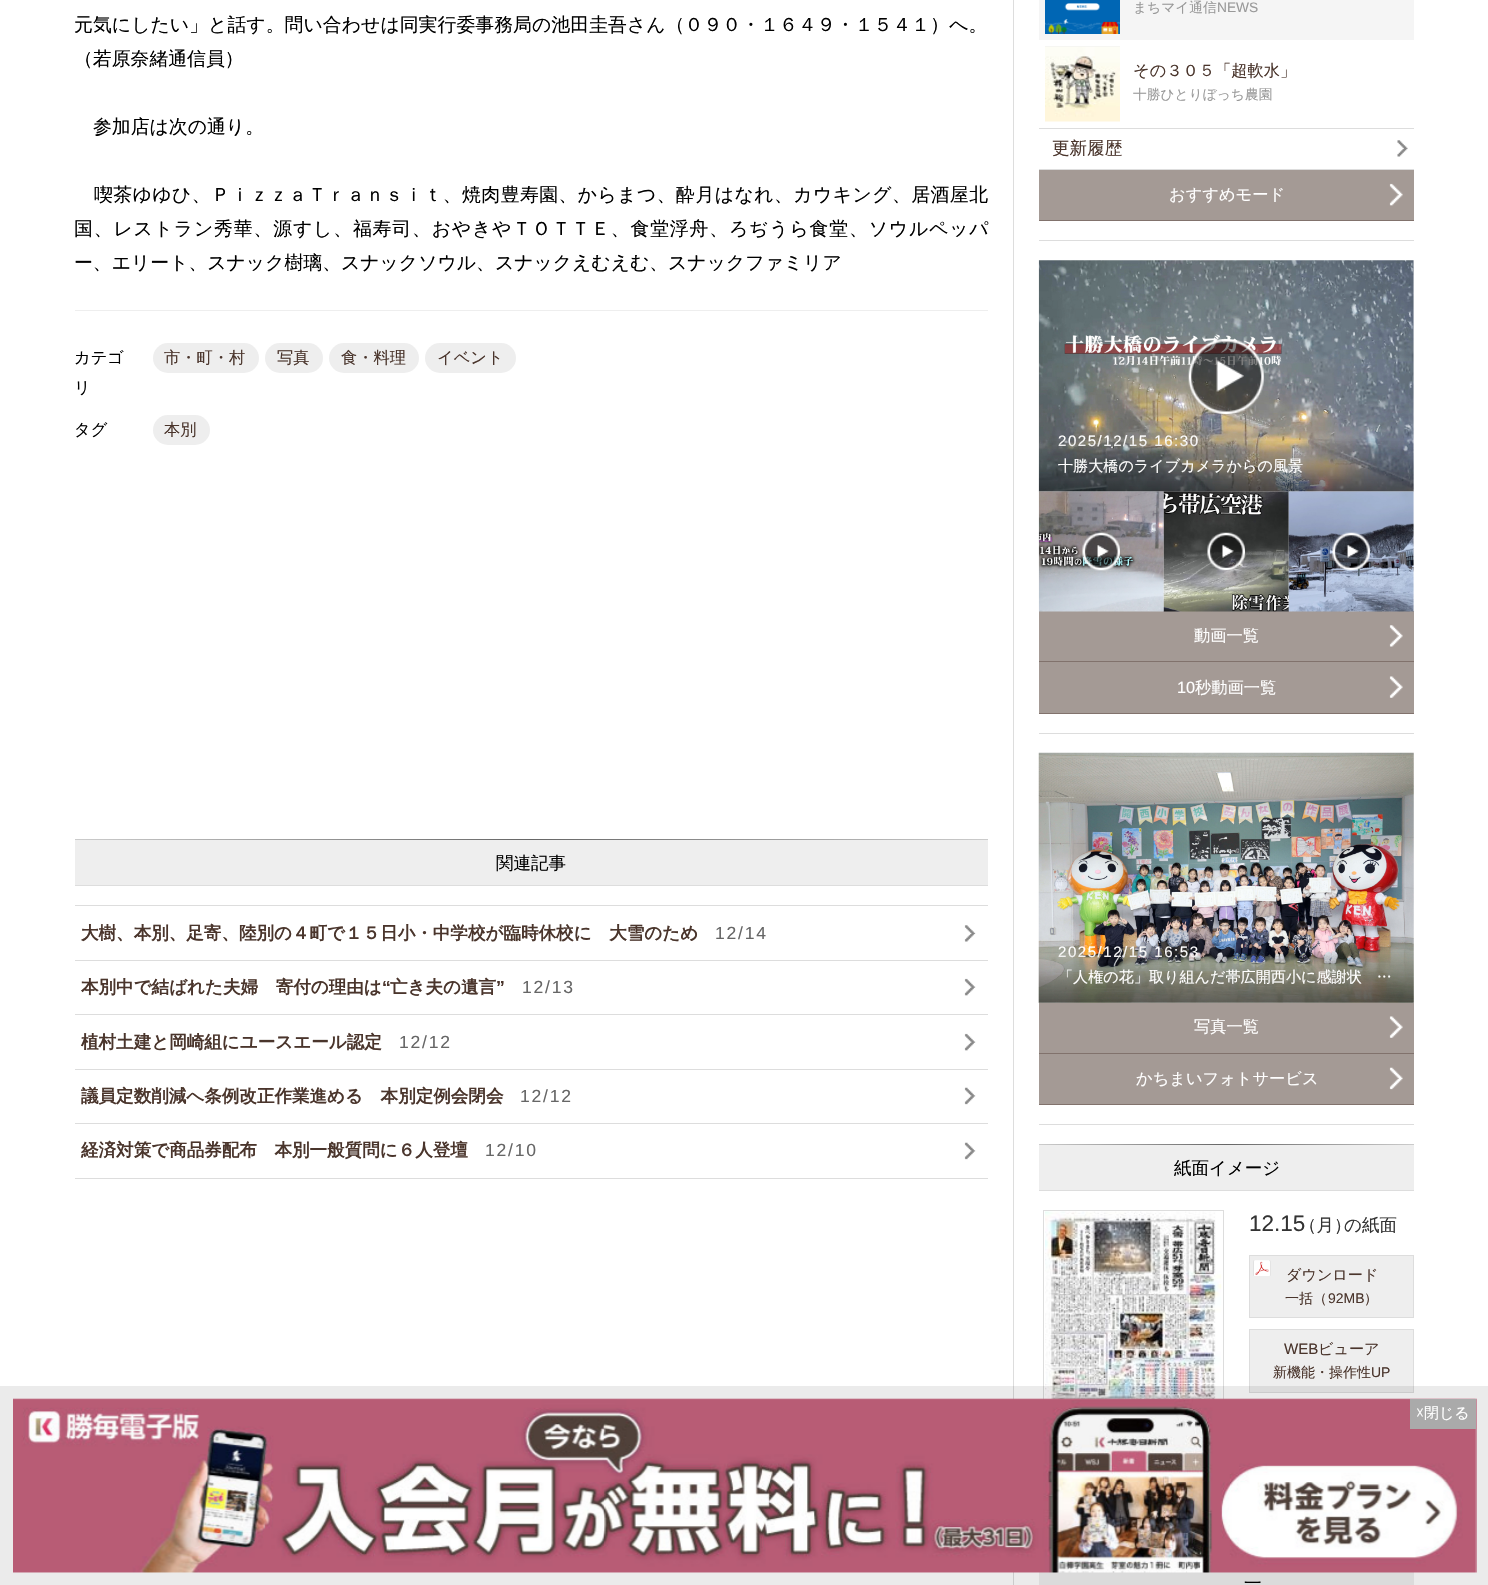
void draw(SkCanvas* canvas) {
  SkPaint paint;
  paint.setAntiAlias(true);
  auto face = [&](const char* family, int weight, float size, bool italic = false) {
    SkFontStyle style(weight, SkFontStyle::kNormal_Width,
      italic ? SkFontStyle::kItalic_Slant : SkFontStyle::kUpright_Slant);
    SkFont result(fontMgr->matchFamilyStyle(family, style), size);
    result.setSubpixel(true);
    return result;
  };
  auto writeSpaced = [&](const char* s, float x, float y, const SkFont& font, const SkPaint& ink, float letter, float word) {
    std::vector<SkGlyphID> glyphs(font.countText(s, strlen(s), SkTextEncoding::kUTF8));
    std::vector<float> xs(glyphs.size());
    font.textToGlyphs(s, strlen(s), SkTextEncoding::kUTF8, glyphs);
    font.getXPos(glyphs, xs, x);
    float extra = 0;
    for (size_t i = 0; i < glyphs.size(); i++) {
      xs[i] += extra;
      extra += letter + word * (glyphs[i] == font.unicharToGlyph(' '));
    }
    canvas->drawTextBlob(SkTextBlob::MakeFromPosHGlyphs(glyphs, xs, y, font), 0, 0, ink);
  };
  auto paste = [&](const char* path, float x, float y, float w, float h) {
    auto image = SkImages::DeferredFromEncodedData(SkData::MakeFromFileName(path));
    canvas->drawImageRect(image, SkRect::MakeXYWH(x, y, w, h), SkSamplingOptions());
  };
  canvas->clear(0xffffffff);
  paint.setColor(0xffeeeeee);
  canvas->drawRect(SkRect::MakeXYWH(75, 310, 913, 1), paint);
  canvas->drawRoundRect(SkRect::MakeXYWH(153, 343, 106, 30), 15, 15, paint);
  canvas->drawRoundRect(SkRect::MakeXYWH(265, 343, 58, 30), 15, 15, paint);
  canvas->drawRoundRect(SkRect::MakeXYWH(329, 343, 90, 30), 15, 15, paint);
  canvas->drawRoundRect(SkRect::MakeXYWH(425, 343, 91, 30), 15, 15, paint);
  canvas->drawRoundRect(SkRect::MakeXYWH(153, 415, 57, 30), 15, 15, paint);
  canvas->drawRect(SkRect::MakeXYWH(75, 840, 913, 45), paint);
  paint.setColor(0xffdddddd);
  canvas->drawRect(SkRect::MakeXYWH(75, 885, 913, 1), paint);
  {
    const SkColor colors[] = {0xffcccccc, 0xff666666, 0xffcccccc};
    const float stops[] = {0, 0.5f, 1};
    const SkPoint ends[] = {{75, 839}, {988, 839}};
    paint.setShader(SkGradientShader::MakeLinear(ends, colors, stops, 3, SkTileMode::kClamp));
    paint.setAlpha(255);
  }
  canvas->drawRect(SkRect::MakeXYWH(75, 839, 913, 1), paint);
  paint.setShader(nullptr);
  paint.setColor(0xffdddddd);
  canvas->drawRect(SkRect::MakeXYWH(75, 905, 913, 1), paint);
  paste("img/1.png", 964, 925, 12, 17);
  canvas->drawRect(SkRect::MakeXYWH(75, 960, 913, 1), paint);
  paste("img/2.png", 964, 978, 12, 18);
  canvas->drawRect(SkRect::MakeXYWH(75, 1014, 913, 1), paint);
  paste("img/2.png", 964, 1033, 12, 18);
  canvas->drawRect(SkRect::MakeXYWH(75, 1069, 913, 1), paint);
  paste("img/3.png", 964, 1087, 12, 18);
  canvas->drawRect(SkRect::MakeXYWH(75, 1123, 913, 1), paint);
  paste("img/3.png", 964, 1142, 12, 18);
  {
    const struct { float x, y, w, h; SkColor color; } items[] = {
      {75, 1178, 913, 1, 0xffdddddd},
      {1013, 0, 1, 1585, 0xffdddddd},
      {1039, 240, 375, 1, 0xffdddddd},
      {1039, 0, 375, 40, 0xfff5f5f5},
    };
    for (auto [x, y, w, h, color] : items) {
      paint.setColor(color);
      canvas->drawRect(SkRect::MakeXYWH(x, y, w, h), paint);
    }
  }
  paste("img/4.png", 1045, 0, 75, 34);
  paint.setColor(0xffeeeeee);
  canvas->drawRect(SkRect::MakeXYWH(1045, 46, 75, 1), paint);
  paste("img/5.png", 1045, 46, 75, 76);
  paint.setColor(0xffdddddd);
  canvas->drawRect(SkRect::MakeXYWH(1039, 128, 375, 1), paint);
  paste("img/6.png", 1397, 140, 11, 17);
  canvas->drawRect(SkRect::MakeXYWH(1039, 169, 375, 1), paint);
  paint.setColor(0xffa49a95);
  canvas->drawRect(SkRect::MakeXYWH(1039, 170, 375, 50), paint);
  paste("img/7.png", 1389, 183, 14, 23);
  paint.setColor(0xff81726c);
  canvas->drawRect(SkRect::MakeXYWH(1039, 220, 375, 1), paint);
  paint.setColor(0xffdddddd);
  canvas->drawRect(SkRect::MakeXYWH(1039, 733, 375, 1), paint);
  paste("img/8.png", 1038, 260, 376, 232);
  paste("img/9.png", 1188, 339, 76, 75);
  paint.setColor(0xffa49a95);
  canvas->drawRect(SkRect::MakeXYWH(1039, 611, 375, 102), paint);
  paste("img/17.png", 1389, 625, 14, 22);
  paint.setColor(0xff81726c);
  canvas->drawRect(SkRect::MakeXYWH(1039, 661, 375, 1), paint);
  paste("img/18.png", 1389, 676, 14, 22);
  canvas->drawRect(SkRect::MakeXYWH(1039, 713, 375, 1), paint);
  paint.setColor(0xffdddddd);
  canvas->drawRect(SkRect::MakeXYWH(1039, 1124, 375, 1), paint);
  paste("img/19.png", 1038, 752, 376, 251);
  paint.setColor(0xffa49a95);
  canvas->drawRect(SkRect::MakeXYWH(1039, 1003, 375, 50), paint);
  paste("img/18.png", 1389, 1016, 14, 22);
  paint.setColor(0xff81726c);
  canvas->drawRect(SkRect::MakeXYWH(1039, 1053, 375, 1), paint);
  paint.setColor(0xffa49a95);
  canvas->drawRect(SkRect::MakeXYWH(1039, 1054, 375, 50), paint);
  paste("img/21.png", 1389, 1067, 14, 23);
  {
    const struct { float x, y, w, h; SkColor color; } items[] = {
      {1039, 1104, 375, 1, 0xff81726c},
      {1039, 1145, 375, 45, 0xffeeeeee},
      {1039, 1190, 375, 1, 0xffdddddd},
    };
    for (auto [x, y, w, h, color] : items) {
      paint.setColor(color);
      canvas->drawRect(SkRect::MakeXYWH(x, y, w, h), paint);
    }
  }
  {
    const SkColor colors[] = {0xffcccccc, 0xff666666, 0xffcccccc};
    const float stops[] = {0, 0.5f, 1};
    const SkPoint ends[] = {{1039, 1144}, {1414, 1144}};
    paint.setShader(SkGradientShader::MakeLinear(ends, colors, stops, 3, SkTileMode::kClamp));
    paint.setAlpha(255);
  }
  canvas->drawRect(SkRect::MakeXYWH(1039, 1144, 375, 1), paint);
  paint.setStroke(true);
  paint.setStrokeWidth(1);
  paint.setShader(nullptr);
  paint.setColor(0xffdddddd);
  canvas->drawRect(SkRect::MakeXYWH(1043.5f, 1210.5f, 180, 239), paint);
  paste("img/22.png", 1045, 1211, 177, 189);
  paint.setStroke(false);
  paint.setColor(0xffeeeeee);
  canvas->drawRect(SkRect::MakeXYWH(1249.5f, 1255.5f, 164, 62), paint);
  paint.setStroke(true);
  paint.setColor(0xffdddddd);
  canvas->drawRect(SkRect::MakeXYWH(1249.5f, 1255.5f, 164, 62), paint);
  paste("img/23.png", 1253, 1260, 18, 16);
  paint.setStroke(false);
  paint.setColor(0xffeeeeee);
  canvas->drawRect(SkRect::MakeXYWH(1249.5f, 1329.5f, 164, 63), paint);
  paint.setStroke(true);
  paint.setColor(0xffdddddd);
  canvas->drawRect(SkRect::MakeXYWH(1249.5f, 1329.5f, 164, 63), paint);
  paint.setStroke(false);
  paint.setColor(0xffeeeeee);
  canvas->drawRect(SkRect::MakeXYWH(1039, 1572, 375, 13), paint);
  paint.setColor(0x14000000);
  canvas->drawRect(SkRect::MakeXYWH(0, 1386, 1488, 199), paint);
  paste("img/24.png", 13, 1398, 1464, 175);
  paint.setColor(0xffaaaaaa);
  canvas->drawRect(SkRect::MakeXYWH(1410, 1399, 66, 30), paint);
  auto f0 = face("WenQuanYi Zen Hei", 500, 18.85f);
  paint.setColor(0xff000000);
  writeSpaced("元気にしたい」と話す。問い合わせは同実行委事務局の池田圭吾さん（０９０・１６４９・１５４１）へ。", 74, 31, f0, paint, 0.05f, 0);
  canvas->drawString("（若原奈緒通信員）", 74, 65, f0, paint);
  canvas->drawString("参加店は次の通り。", 93, 133, f0, paint);
  writeSpaced("喫茶ゆゆひ、ＰｉｚｚａＴｒａｎｓｉｔ、焼肉豊寿園、からまつ、酔月はなれ、カウキング、居酒屋北", 94, 201, f0, paint, 0.45f, 0);
  writeSpaced("国、レストラン秀華、源すし、福寿司、おやきやＴＯＴＴＥ、食堂浮舟、ろぢうら食堂、ソウルペッパ", 74, 235, f0, paint, 0.85f, 0);
  canvas->drawString("ー、エリート、スナック樹璃、スナックソウル、スナックえむえむ、スナックファミリア", 74, 269, f0, paint);
  auto f1 = face("WenQuanYi Zen Hei", 500, 16.25f);
  canvas->drawString("カテゴ", 74, 363, f1, paint);
  canvas->drawString("リ", 74, 393, f1, paint);
  paint.setColor(0xff4a352c);
  {
    const struct { const char* s; float x, y; } items[] = {
      {"市・町・村", 164, 363},
      {"写真", 277, 363},
      {"食・料理", 341, 363},
      {"イベント", 437, 363},
    };
    for (auto [s, x, y] : items) {
      canvas->drawString(s, x, y, f1, paint);
    }
  }
  paint.setColor(0xff000000);
  canvas->drawString("タグ", 74, 435, f1, paint);
  paint.setColor(0xff4a352c);
  canvas->drawString("本別", 164, 435, f1, paint);
  auto f2 = face("WenQuanYi Zen Hei", 500, 17.5f);
  paint.setColor(0xff000000);
  canvas->drawString("関連記事", 496, 869, f2, paint);
  auto f3 = face("WenQuanYi Zen Hei", 700, 17.55f);
  paint.setColor(0xff4a352c);
  canvas->drawString("大樹、本別、足寄、陸別の４町で１５日小・中学校が臨時休校に　大雪のため", 81, 939, f3, paint);
  auto f4 = face("Liberation Sans", 400, 17.55f);
  paint.setColor(0xff666666);
  writeSpaced("12/14", 715, 939, f4, paint, 1.75f, 0);
  paint.setColor(0xff4a352c);
  canvas->drawString("本別中で結ばれた夫婦　寄付の理由は", 81, 993, f3, paint);
  auto f5 = face("Liberation Sans", 700, 17.55f);
  canvas->drawString("“", 382, 993, f5, paint);
  canvas->drawString("亡き夫の遺言", 390, 993, f3, paint);
  canvas->drawString("”", 496, 993, f5, paint);
  paint.setColor(0xff666666);
  writeSpaced("12/13", 522, 993, f4, paint, 1.75f, 0);
  paint.setColor(0xff4a352c);
  canvas->drawString("植村土建と岡崎組にユースエール認定", 81, 1048, f3, paint);
  paint.setColor(0xff666666);
  writeSpaced("12/12", 399, 1048, f4, paint, 1.75f, 0);
  paint.setColor(0xff4a352c);
  canvas->drawString("議員定数削減へ条例改正作業進める　本別定例会閉会", 81, 1102, f3, paint);
  paint.setColor(0xff666666);
  writeSpaced("12/12", 520, 1102, f4, paint, 1.75f, 0);
  paint.setColor(0xff4a352c);
  canvas->drawString("経済対策で商品券配布　本別一般質問に６人登壇", 81, 1156, f3, paint);
  paint.setColor(0xff666666);
  writeSpaced("12/10", 485, 1156, f4, paint, 1.75f, 0);
  auto f6 = face("WenQuanYi Zen Hei", 500, 13.75f);
  paint.setColor(0xff999999);
  canvas->drawString("まちマイ通信", 1133, 12, f6, paint);
  auto f7 = face("Liberation Sans", 400, 13.75f);
  canvas->drawString("NEWS", 1217, 12, f7, paint);
  paint.setColor(0xff4a352c);
  canvas->drawString("その３０５「超軟水」", 1133, 76, f1, paint);
  paint.setColor(0xff999999);
  canvas->drawString("十勝ひとりぼっち農園", 1133, 99, f6, paint);
  auto f8 = face("WenQuanYi Zen Hei", 500, 17.55f);
  paint.setColor(0xff4a352c);
  canvas->drawString("更新履歴", 1052, 154, f8, paint);
  paint.setColor(0xffffffff);
  canvas->drawString("おすすめモード", 1169, 200, f1, paint);
  auto f9 = face("Liberation Sans", 400, 15.1f);
  writeSpaced("2025/12/15 16:30", 1058, 446, f9, paint, 1.5f, 0);
  paste("img/10.png", 1038, 441, 376, 51);
  auto f10 = face("WenQuanYi Zen Hei", 500, 15.1f);
  canvas->drawString("十勝大橋のライブカメラからの風景", 1058, 471, f10, paint);
  paste("img/11.png", 1038, 491, 126, 121);
  paste("img/12.png", 1082, 532, 38, 39);
  paste("img/13.png", 1163, 491, 126, 121);
  paste("img/14.png", 1207, 532, 38, 39);
  paste("img/15.png", 1288, 491, 126, 121);
  paste("img/16.png", 1332, 532, 38, 39);
  canvas->drawString("動画一覧", 1194, 641, f1, paint);
  auto f11 = face("Liberation Sans", 400, 16.25f);
  canvas->drawString("10", 1177, 693, f11, paint);
  canvas->drawString("秒動画一覧", 1195, 693, f1, paint);
  writeSpaced("2025/12/15 16:53", 1058, 957, f9, paint, 1.5f, 0);
  paste("img/20.png", 1038, 952, 376, 51);
  canvas->drawString("「人権の花」取り組んだ帯広開西小に感謝状　…", 1058, 982, f10, paint);
  canvas->drawString("写真一覧", 1194, 1032, f1, paint);
  canvas->drawString("かちまいフォトサービス", 1136, 1084, f1, paint);
  paint.setColor(0xff000000);
  canvas->drawString("紙面イメージ", 1174, 1174, f2, paint);
  auto f12 = face("Liberation Sans", 400, 22.5f);
  paint.setColor(0xff333333);
  canvas->drawString("12.15", 1249, 1231, f12, paint);
  canvas->drawString("（月）", 1299, 1231, f2, paint);
  canvas->drawString("の紙面", 1344, 1231, f2, paint);
  paint.setColor(0xff4a352c);
  canvas->drawString("ダウンロード", 1286, 1280, f10, paint);
  auto f13 = face("WenQuanYi Zen Hei", 500, 14);
  canvas->drawString("一括（", 1285, 1303, f13, paint);
  auto f14 = face("Liberation Sans", 400, 14);
  canvas->drawString("92MB", 1328, 1303, f14, paint);
  canvas->drawString("）", 1364, 1303, f13, paint);
  canvas->drawString("WEB", 1284, 1354, f9, paint);
  canvas->drawString("ビューア", 1318, 1354, f10, paint);
  canvas->drawString("新機能・操作性", 1273, 1377, f13, paint);
  canvas->drawString("UP", 1371, 1377, f14, paint);
  paint.setColor(0xff000000);
  canvas->drawString("一", 1244, 1589, f2, paint);
  auto f15 = face("DejaVu Sans", 400, 15);
  paint.setColor(0xffffffff);
  canvas->drawString("☓", 1416, 1418, f15, paint);
  auto f16 = face("WenQuanYi Zen Hei", 500, 15);
  canvas->drawString("閉じる", 1424, 1418, f16, paint);
}
